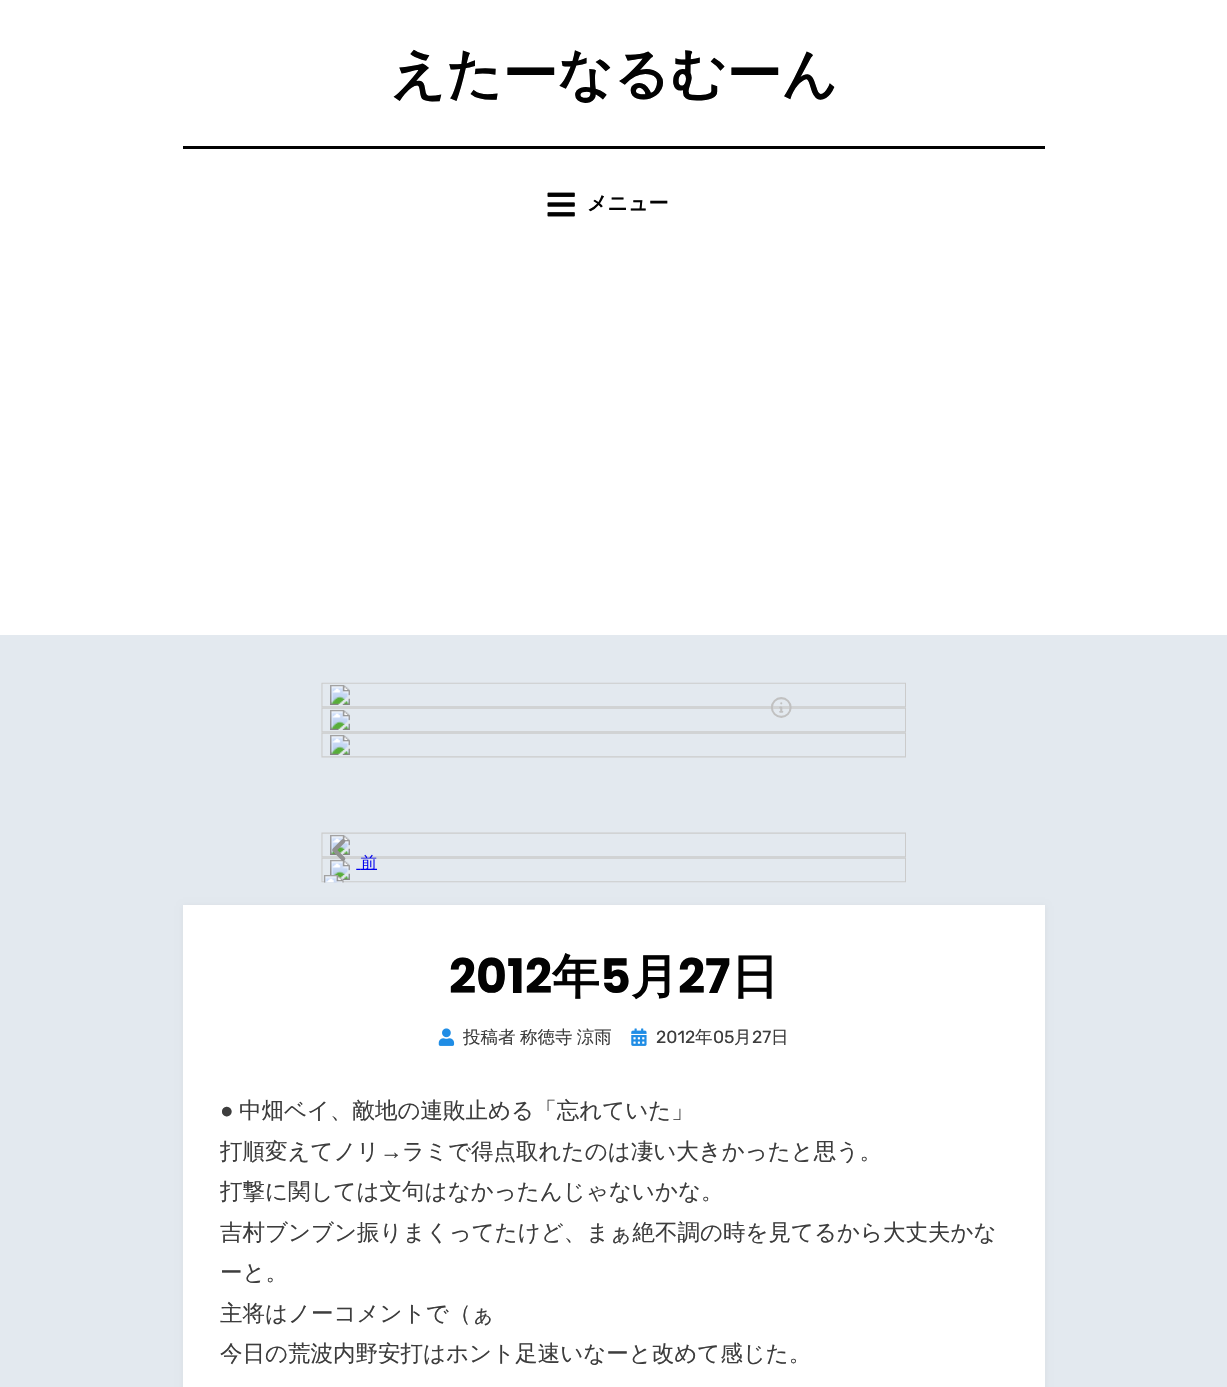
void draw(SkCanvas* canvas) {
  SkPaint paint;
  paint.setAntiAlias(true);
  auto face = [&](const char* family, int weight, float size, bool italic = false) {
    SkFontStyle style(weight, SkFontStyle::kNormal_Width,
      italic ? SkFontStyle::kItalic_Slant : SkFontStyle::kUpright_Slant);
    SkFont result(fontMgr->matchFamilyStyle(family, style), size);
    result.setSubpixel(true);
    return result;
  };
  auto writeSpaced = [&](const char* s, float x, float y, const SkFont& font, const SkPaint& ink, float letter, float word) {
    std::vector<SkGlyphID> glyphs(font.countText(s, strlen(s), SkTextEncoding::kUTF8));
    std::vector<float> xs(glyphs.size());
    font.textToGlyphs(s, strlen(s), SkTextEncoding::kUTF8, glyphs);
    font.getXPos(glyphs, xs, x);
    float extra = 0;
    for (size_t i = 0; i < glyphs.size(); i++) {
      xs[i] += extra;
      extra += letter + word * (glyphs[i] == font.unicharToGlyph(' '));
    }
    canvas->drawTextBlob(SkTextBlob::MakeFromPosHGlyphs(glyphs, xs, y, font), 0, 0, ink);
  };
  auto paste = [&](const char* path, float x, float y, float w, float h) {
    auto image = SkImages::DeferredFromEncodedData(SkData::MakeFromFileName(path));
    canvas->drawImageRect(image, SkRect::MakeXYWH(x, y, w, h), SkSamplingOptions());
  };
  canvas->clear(0xffe3e9ef);
  paint.setColor(0xffffffff);
  canvas->drawRect(SkRect::MakeXYWH(0, 0, 1227, 635), paint);
  paint.setColor(0xff020202);
  canvas->drawRect(SkRect::MakeXYWH(183, 146, 862, 3), paint);
  paste("img/1.png", 547, 192, 28, 25);
  paste("img/2.png", 321, 682, 585, 201);
  paint.setColor(0x0d000001);
  paint.setMaskFilter(SkMaskFilter::MakeBlur(kNormal_SkBlurStyle, 3));
  canvas->drawRect(SkRect::MakeXYWH(183, 906, 862, 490), paint);
  paint.setMaskFilter(nullptr);
  paint.setColor(0xffffffff);
  canvas->drawRect(SkRect::MakeXYWH(183, 905, 862, 482), paint);
  paste("img/3.png", 438, 1028, 17, 18);
  paste("img/4.png", 631, 1028, 16, 18);
  auto f0 = face("WenQuanYi Zen Hei", 700, 55);
  paint.setColor(0xff020202);
  canvas->drawString("えたーなるむーん", 390, 93, f0, paint);
  auto f1 = face("WenQuanYi Zen Hei", 700, 20);
  canvas->drawString("メニュー", 587, 210, f1, paint);
  auto f2 = face("Poppins", 700, 47.5f);
  canvas->drawString("2012", 449, 993, f2, paint);
  auto f3 = face("WenQuanYi Zen Hei", 700, 47.5f);
  canvas->drawString("年", 552, 993, f3, paint);
  canvas->drawString("5", 600, 993, f2, paint);
  canvas->drawString("月", 631, 993, f3, paint);
  canvas->drawString("27", 678, 993, f2, paint);
  canvas->drawString("日", 731, 993, f3, paint);
  auto f4 = face("WenQuanYi Zen Hei", 500, 17.5f);
  paint.setColor(0xff3d3d3d);
  canvas->drawString("投稿者", 463, 1043, f4, paint);
  writeSpaced("称徳寺 涼雨", 520, 1043, f4, paint, 0, -1);
  auto f5 = face("Rubik", 400, 17.5f);
  canvas->drawString("2012", 656, 1043, f5, paint);
  canvas->drawString("年", 695, 1043, f4, paint);
  canvas->drawString("05", 713, 1043, f5, paint);
  canvas->drawString("月", 734, 1043, f4, paint);
  canvas->drawString("27", 752, 1043, f5, paint);
  canvas->drawString("日", 771, 1043, f4, paint);
  auto f6 = face("Liberation Sans", 400, 22.5f);
  canvas->drawString("●", 220, 1118, f6, paint);
  auto f7 = face("WenQuanYi Zen Hei", 500, 22.5f);
  canvas->drawString("中畑ベイ、敵地の連敗止める「忘れていた」", 239, 1118, f7, paint);
  canvas->drawString("打順変えてノリ", 220, 1159, f7, paint);
  canvas->drawString("→", 380, 1159, f6, paint);
  {
    const struct { const char* s; float x, y; } items[] = {
      {"ラミで得点取れたのは凄い大きかったと思う。", 402, 1159},
      {"打撃に関しては文句はなかったんじゃないかな。", 220, 1199},
      {"吉村ブンブン振りまくってたけど、まぁ絶不調の時を見てるから大丈夫かな", 220, 1240},
      {"ーと。", 220, 1280},
      {"主将はノーコメントで（ぁ", 220, 1321},
      {"今日の荒波内野安打はホント足速いなーと改めて感じた。", 220, 1361},
    };
    for (auto [s, x, y] : items) {
      canvas->drawString(s, x, y, f7, paint);
    }
  }
}
